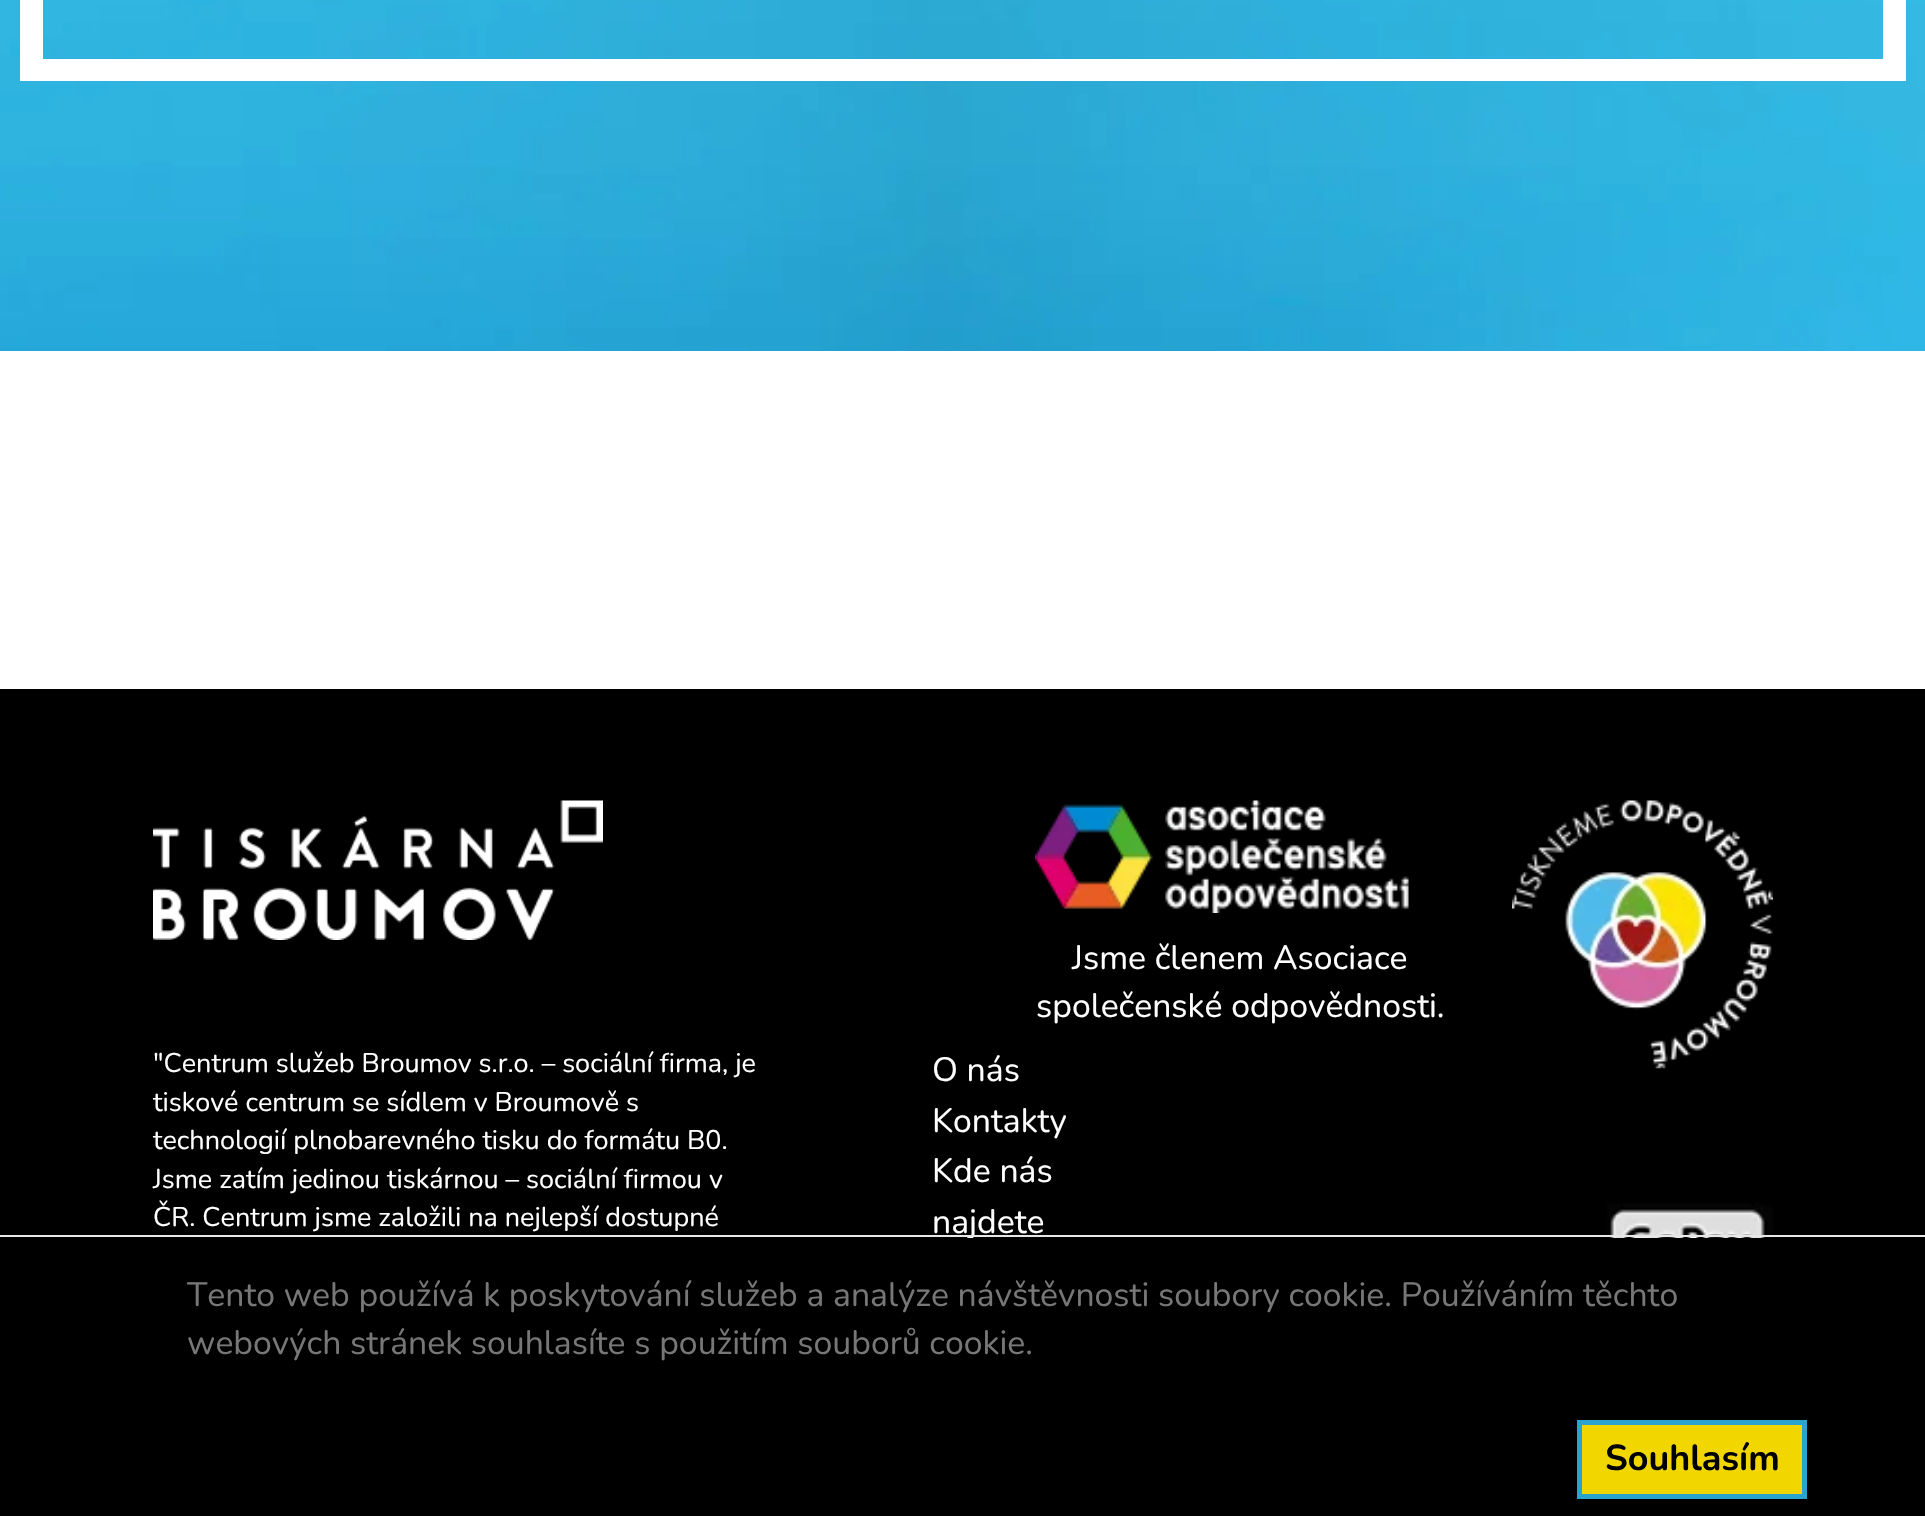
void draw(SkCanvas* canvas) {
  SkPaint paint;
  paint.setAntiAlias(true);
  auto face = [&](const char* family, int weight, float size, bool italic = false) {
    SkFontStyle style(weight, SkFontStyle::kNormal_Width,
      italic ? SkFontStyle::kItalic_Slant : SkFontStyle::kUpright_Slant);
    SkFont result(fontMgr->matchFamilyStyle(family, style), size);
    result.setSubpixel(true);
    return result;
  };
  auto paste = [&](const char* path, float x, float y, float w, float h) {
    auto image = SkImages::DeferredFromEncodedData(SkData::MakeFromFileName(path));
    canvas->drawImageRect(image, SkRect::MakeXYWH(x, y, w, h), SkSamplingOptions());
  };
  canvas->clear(0xffffffff);
  paste("img/1.png", 0, 0, 1925, 351);
  {
    const struct { float x, y, w, h; SkColor color; } items[] = {
      {1883, 0, 23, 59, 0xffffffff},
      {20, 0, 23, 81, 0xffffffff},
      {43, 59, 1863, 22, 0xffffffff},
      {0, 689, 1925, 549, 0xff000000},
    };
    for (auto [x, y, w, h, color] : items) {
      paint.setColor(color);
      canvas->drawRect(SkRect::MakeXYWH(x, y, w, h), paint);
    }
  }
  paste("img/2.png", 153, 800, 450, 140);
  paste("img/3.png", 1035, 800, 374, 113);
  paste("img/4.png", 1512, 800, 261, 269);
  paste("img/5.png", 1607, 1203, 166, 35);
  auto f0 = face("Nunito", 400, 33.75f);
  paint.setColor(0xffffffff);
  canvas->drawString("Jsme členem Asociace", 1072, 969, f0, paint);
  canvas->drawString("společenské odpovědnosti.", 1036, 1017, f0, paint);
  auto f1 = face("Nunito", 400, 27);
  {
    const struct { const char* s; float x, y; } items[] = {
      {"\"Centrum služeb Broumov s.r.o. – sociální firma, je", 153, 1072},
      {"tiskové centrum se sídlem v Broumově s", 153, 1111},
      {"technologií plnobarevného tisku do formátu B0.", 153, 1149},
      {"Jsme zatím jedinou tiskárnou – sociální firmou v", 153, 1188},
      {"ČR. Centrum jsme založili na nejlepší dostupné", 153, 1226},
    };
    for (auto [s, x, y] : items) {
      canvas->drawString(s, x, y, f1, paint);
    }
  }
  {
    const struct { const char* s; float x, y; } items[] = {
      {"O nás", 932, 1081},
      {"Kontakty", 932, 1132},
      {"Kde nás", 932, 1182},
      {"najdete", 932, 1233},
    };
    for (auto [s, x, y] : items) {
      canvas->drawString(s, x, y, f0, paint);
    }
  }
  paint.setColor(0xff000000);
  canvas->drawRect(SkRect::MakeXYWH(0, 1238, 1925, 278), paint);
  paint.setColor(0xffe7e7e7);
  canvas->drawRect(SkRect::MakeXYWH(0, 1235, 1925, 2), paint);
  paint.setColor(0xff777777);
  canvas->drawString("Tento web používá k poskytování služeb a analýze návštěvnosti soubory cookie. Používáním těchto", 187, 1306, f0, paint);
  canvas->drawString("webových stránek souhlasíte s použitím souborů cookie.", 187, 1354, f0, paint);
  paint.setColor(0xfff1d600);
  canvas->drawRect(SkRect::MakeXYWH(1579.5f, 1422.5f, 225, 74), paint);
  paint.setStroke(true);
  paint.setStrokeWidth(5);
  paint.setColor(0xff2aa3cf);
  canvas->drawRect(SkRect::MakeXYWH(1579.5f, 1422.5f, 225, 74), paint);
  auto f2 = face("Nunito", 700, 36);
  paint.setStroke(false);
  paint.setColor(0xff000000);
  canvas->drawString("Souhlasím", 1605, 1470, f2, paint);
}
